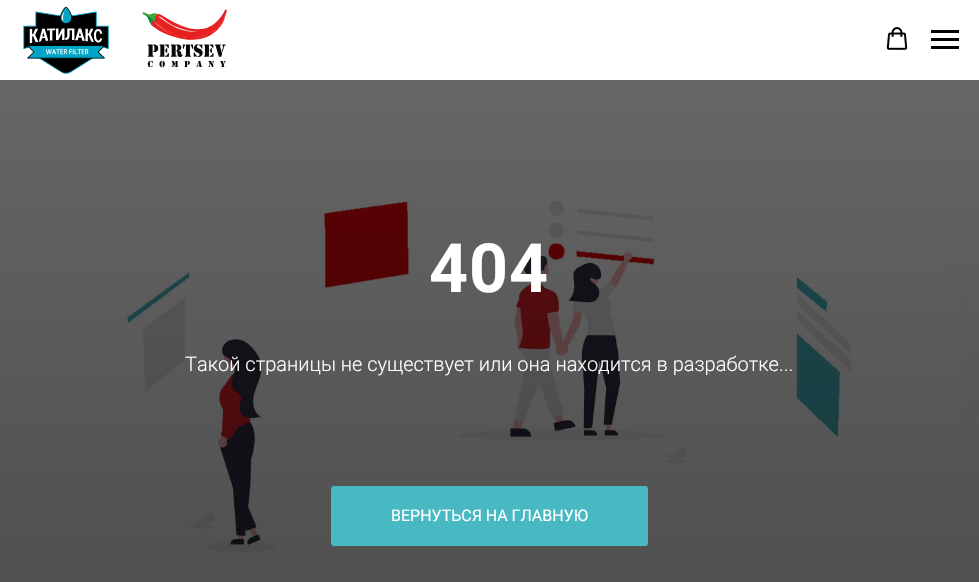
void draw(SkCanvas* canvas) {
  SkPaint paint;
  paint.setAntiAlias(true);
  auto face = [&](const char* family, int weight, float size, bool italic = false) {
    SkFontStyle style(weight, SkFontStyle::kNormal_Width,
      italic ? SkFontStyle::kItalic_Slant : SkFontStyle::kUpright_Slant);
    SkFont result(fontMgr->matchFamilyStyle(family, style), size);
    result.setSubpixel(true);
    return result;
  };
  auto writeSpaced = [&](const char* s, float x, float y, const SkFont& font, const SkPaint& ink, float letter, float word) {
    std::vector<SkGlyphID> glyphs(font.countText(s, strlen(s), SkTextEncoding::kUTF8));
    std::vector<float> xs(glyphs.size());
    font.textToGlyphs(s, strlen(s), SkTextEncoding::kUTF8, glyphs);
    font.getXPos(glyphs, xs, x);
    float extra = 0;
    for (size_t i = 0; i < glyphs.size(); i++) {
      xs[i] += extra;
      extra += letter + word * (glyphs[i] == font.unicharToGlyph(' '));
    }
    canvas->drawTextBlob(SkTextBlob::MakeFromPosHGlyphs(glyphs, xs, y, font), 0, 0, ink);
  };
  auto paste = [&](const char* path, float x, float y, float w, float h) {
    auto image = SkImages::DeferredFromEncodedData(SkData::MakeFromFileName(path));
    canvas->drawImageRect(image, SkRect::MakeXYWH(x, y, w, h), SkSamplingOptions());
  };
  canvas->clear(0xffffffff);
  paste("img/1.png", 23, 6, 204, 68);
  paste("img/2.png", 886, 27, 22, 23);
  {
    const struct { float x, y, w, h; SkColor color; } items[] = {
      {931, 30, 28, 3, 0xff000000},
      {931, 38, 28, 3, 0xff000000},
      {931, 46, 28, 3, 0xff000000},
    };
    for (auto [x, y, w, h, color] : items) {
      paint.setColor(color);
      canvas->drawRect(SkRect::MakeXYWH(x, y, w, h), paint);
    }
  }
  paste("img/3.png", 0, 80, 979, 502);
  paste("img/4.png", 0, 80, 962, 495);
  {
    const SkColor colors[] = {0x99000000, 0xb3000000};
    const float stops[] = {0, 1};
    const SkPoint ends[] = {{489, 80}, {490, 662}};
    paint.setShader(SkGradientShader::MakeLinear(ends, colors, stops, 2, SkTileMode::kClamp));
    paint.setAlpha(255);
  }
  canvas->drawRect(SkRect::MakeXYWH(0, 80, 979, 502), paint);
  paint.setShader(nullptr);
  paint.setColor(0xff48b8c2);
  canvas->drawRoundRect(SkRect::MakeXYWH(331, 486, 317, 60), 3, 3, paint);
  auto f0 = face("Roboto", 700, 68);
  paint.setColor(0xffffffff);
  writeSpaced("404", 429, 292, f0, paint, 1, 0);
  auto f1 = face("Roboto", 300, 20);
  canvas->drawString("Такой страницы не существует или она находится в разработке...", 185, 371, f1, paint);
  auto f2 = face("Roboto", 400, 16);
  canvas->drawString("ВЕРНУТЬСЯ НА ГЛАВНУЮ", 391, 521, f2, paint);
}
